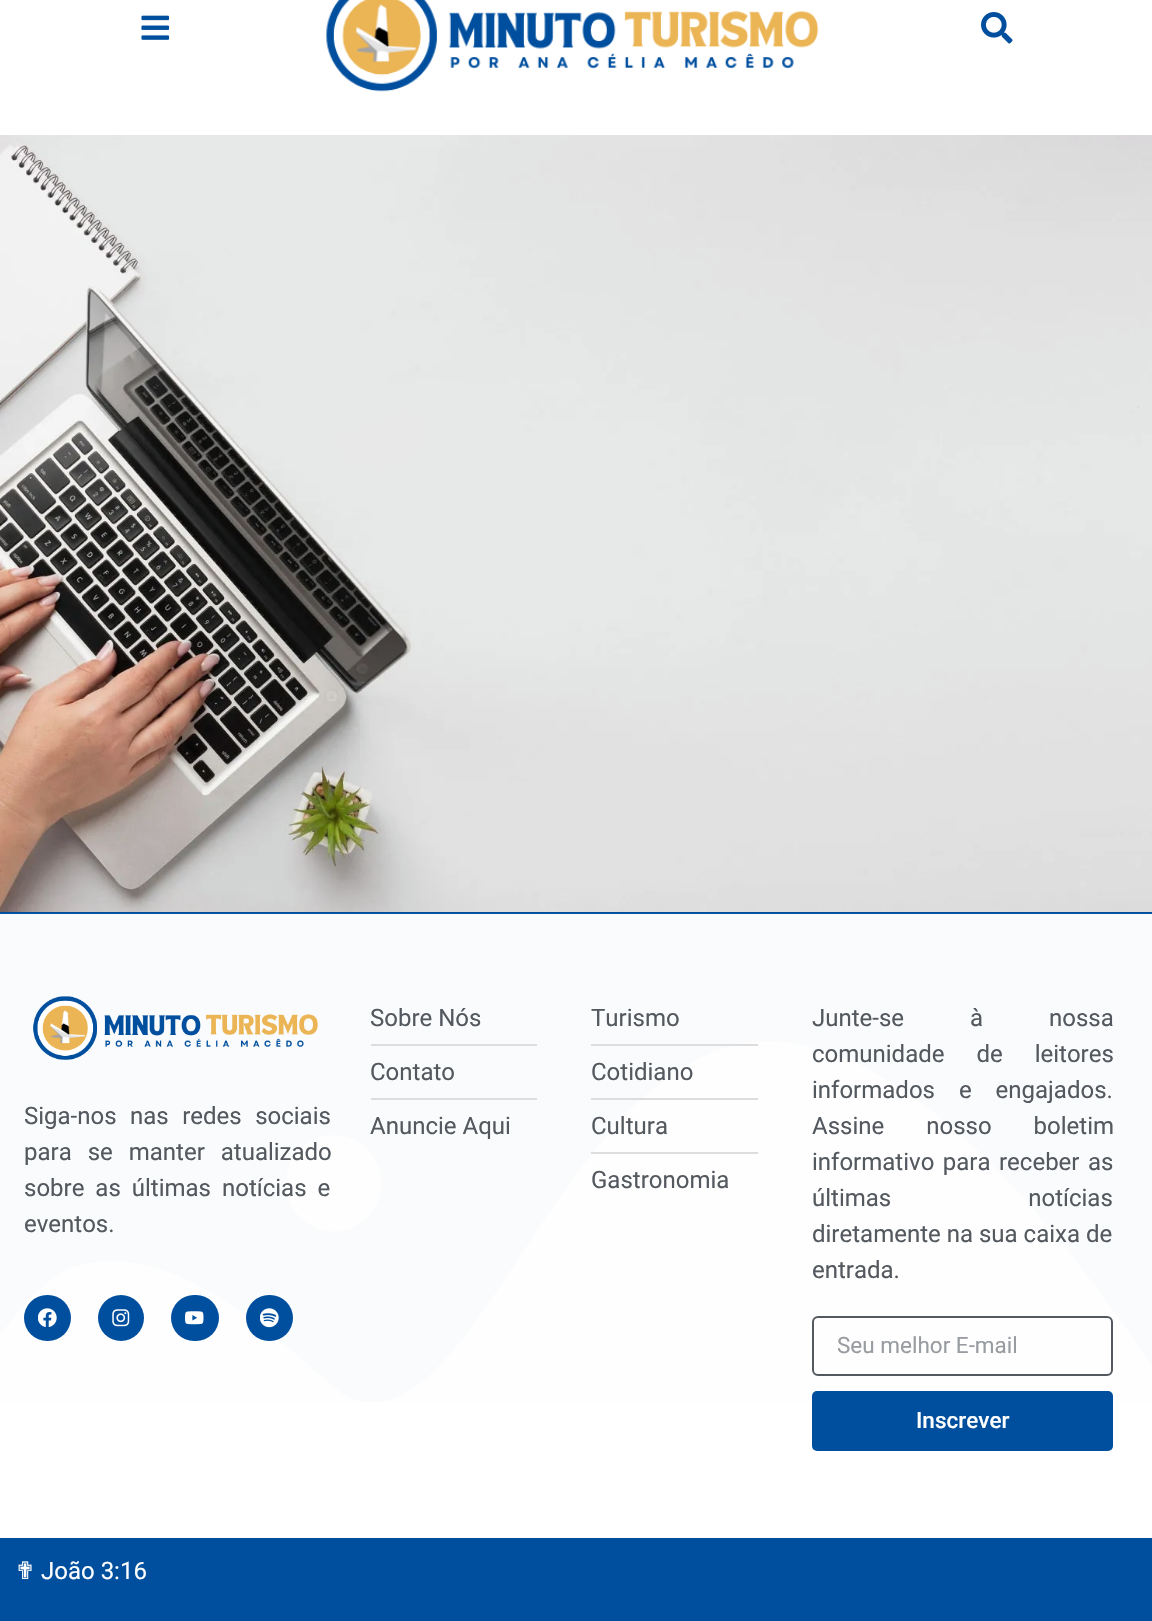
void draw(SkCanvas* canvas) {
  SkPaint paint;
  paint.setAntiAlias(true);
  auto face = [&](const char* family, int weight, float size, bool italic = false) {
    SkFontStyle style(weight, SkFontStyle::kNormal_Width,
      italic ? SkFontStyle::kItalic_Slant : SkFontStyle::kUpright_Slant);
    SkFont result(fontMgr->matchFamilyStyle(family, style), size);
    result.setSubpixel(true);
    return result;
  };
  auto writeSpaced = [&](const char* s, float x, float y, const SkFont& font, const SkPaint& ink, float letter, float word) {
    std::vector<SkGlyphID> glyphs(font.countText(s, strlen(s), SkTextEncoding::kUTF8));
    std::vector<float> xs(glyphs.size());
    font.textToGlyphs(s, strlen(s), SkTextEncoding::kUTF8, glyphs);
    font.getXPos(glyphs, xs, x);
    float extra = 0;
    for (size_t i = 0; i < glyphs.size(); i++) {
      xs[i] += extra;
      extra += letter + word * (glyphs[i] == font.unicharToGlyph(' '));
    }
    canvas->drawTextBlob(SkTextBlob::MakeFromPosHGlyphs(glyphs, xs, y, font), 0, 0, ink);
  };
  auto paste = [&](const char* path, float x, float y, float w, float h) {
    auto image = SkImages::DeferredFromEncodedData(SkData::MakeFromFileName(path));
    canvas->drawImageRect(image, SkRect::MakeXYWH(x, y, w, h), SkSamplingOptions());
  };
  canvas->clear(0xffffffff);
  paste("img/1.png", 141, 15, 29, 25);
  paste("img/2.png", 326, 0, 493, 92);
  paste("img/3.png", 981, 12, 32, 32);
  paste("img/4.png", 0, 135, 1152, 777);
  paint.setColor(0xff004f9e);
  canvas->drawRect(SkRect::MakeXYWH(0, 912, 1152, 2), paint);
  paste("img/5.png", 0, 913, 1152, 489);
  paste("img/6.png", 33, 996, 285, 64);
  canvas->drawRoundRect(SkRect::MakeXYWH(24, 1295, 47, 46), 23, 23, paint);
  paste("img/7.png", 38, 1308, 19, 19);
  canvas->drawCircle(121, 1318, 23, paint);
  paste("img/8.png", 112, 1309, 18, 18);
  canvas->drawRoundRect(SkRect::MakeXYWH(171, 1295, 48, 46), 23, 23, paint);
  paste("img/9.png", 185, 1311, 19, 14);
  canvas->drawRoundRect(SkRect::MakeXYWH(246, 1295, 47, 46), 23, 23, paint);
  paste("img/10.png", 260, 1308, 19, 20);
  {
    const struct { float x, y, w, h; SkColor color; } items[] = {
      {371, 1044, 166, 2, 0xffdddddd},
      {371, 1098, 166, 2, 0xffdddddd},
      {591, 1044, 167, 2, 0xffdddddd},
      {591, 1098, 167, 2, 0xffdddddd},
      {591, 1152, 167, 2, 0xffdddddd},
    };
    for (auto [x, y, w, h, color] : items) {
      paint.setColor(color);
      canvas->drawRect(SkRect::MakeXYWH(x, y, w, h), paint);
    }
  }
  paint.setStroke(true);
  paint.setStrokeWidth(2);
  paint.setColor(0xff54595f);
  canvas->drawRoundRect(SkRect::MakeXYWH(813, 1317, 299, 58), 5, 5, paint);
  paint.setStroke(false);
  paint.setColor(0xff004f9e);
  canvas->drawRoundRect(SkRect::MakeXYWH(812, 1391, 301, 60), 5, 5, paint);
  canvas->drawRect(SkRect::MakeXYWH(0, 1538, 1152, 83), paint);
  auto f0 = face("Roboto", 400, 24);
  paint.setColor(0xff54595f);
  writeSpaced("Siga-nos nas redes sociais", 24, 1124, f0, paint, 0, 7.5f);
  writeSpaced("para se manter atualizado", 24, 1160, f0, paint, 0, 10);
  writeSpaced("sobre as últimas notícias e", 24, 1196, f0, paint, 0, 5);
  {
    const struct { const char* s; float x, y; } items[] = {
      {"eventos.", 24, 1232},
      {"Sobre Nós", 370, 1026},
      {"Contato", 370, 1080},
      {"Anuncie Aqui", 370, 1134},
      {"Turismo", 591, 1026},
      {"Cotidiano", 591, 1080},
      {"Cultura", 591, 1134},
      {"Gastronomia", 591, 1188},
    };
    for (auto [s, x, y] : items) {
      canvas->drawString(s, x, y, f0, paint);
    }
  }
  writeSpaced("Junte-se à nossa", 812, 1026, f0, paint, 0, 60);
  writeSpaced("comunidade de leitores", 812, 1062, f0, paint, 0, 26);
  writeSpaced("informados e engajados.", 812, 1098, f0, paint, 0, 18);
  writeSpaced("Assine nosso boletim", 812, 1134, f0, paint, 0, 36);
  writeSpaced("informativo para receber as", 812, 1170, f0, paint, 0, 2.5f);
  writeSpaced("últimas notícias", 812, 1206, f0, paint, 0, 131);
  canvas->drawString("diretamente na sua caixa de", 812, 1242, f0, paint);
  canvas->drawString("entrada.", 812, 1278, f0, paint);
  auto f1 = face("Roboto", 400, 22.5f);
  paint.setColor(0xff989b9f);
  canvas->drawString("Seu melhor E-mail", 837, 1353, f1, paint);
  auto f2 = face("Roboto", 500, 22.5f);
  paint.setColor(0xffffffff);
  canvas->drawString("Inscrever", 916, 1428, f2, paint);
  auto f3 = face("DejaVu Sans", 400, 24);
  canvas->drawString("✟", 15, 1579, f3, paint);
  canvas->drawString("João 3:16", 41, 1579, f0, paint);
}
